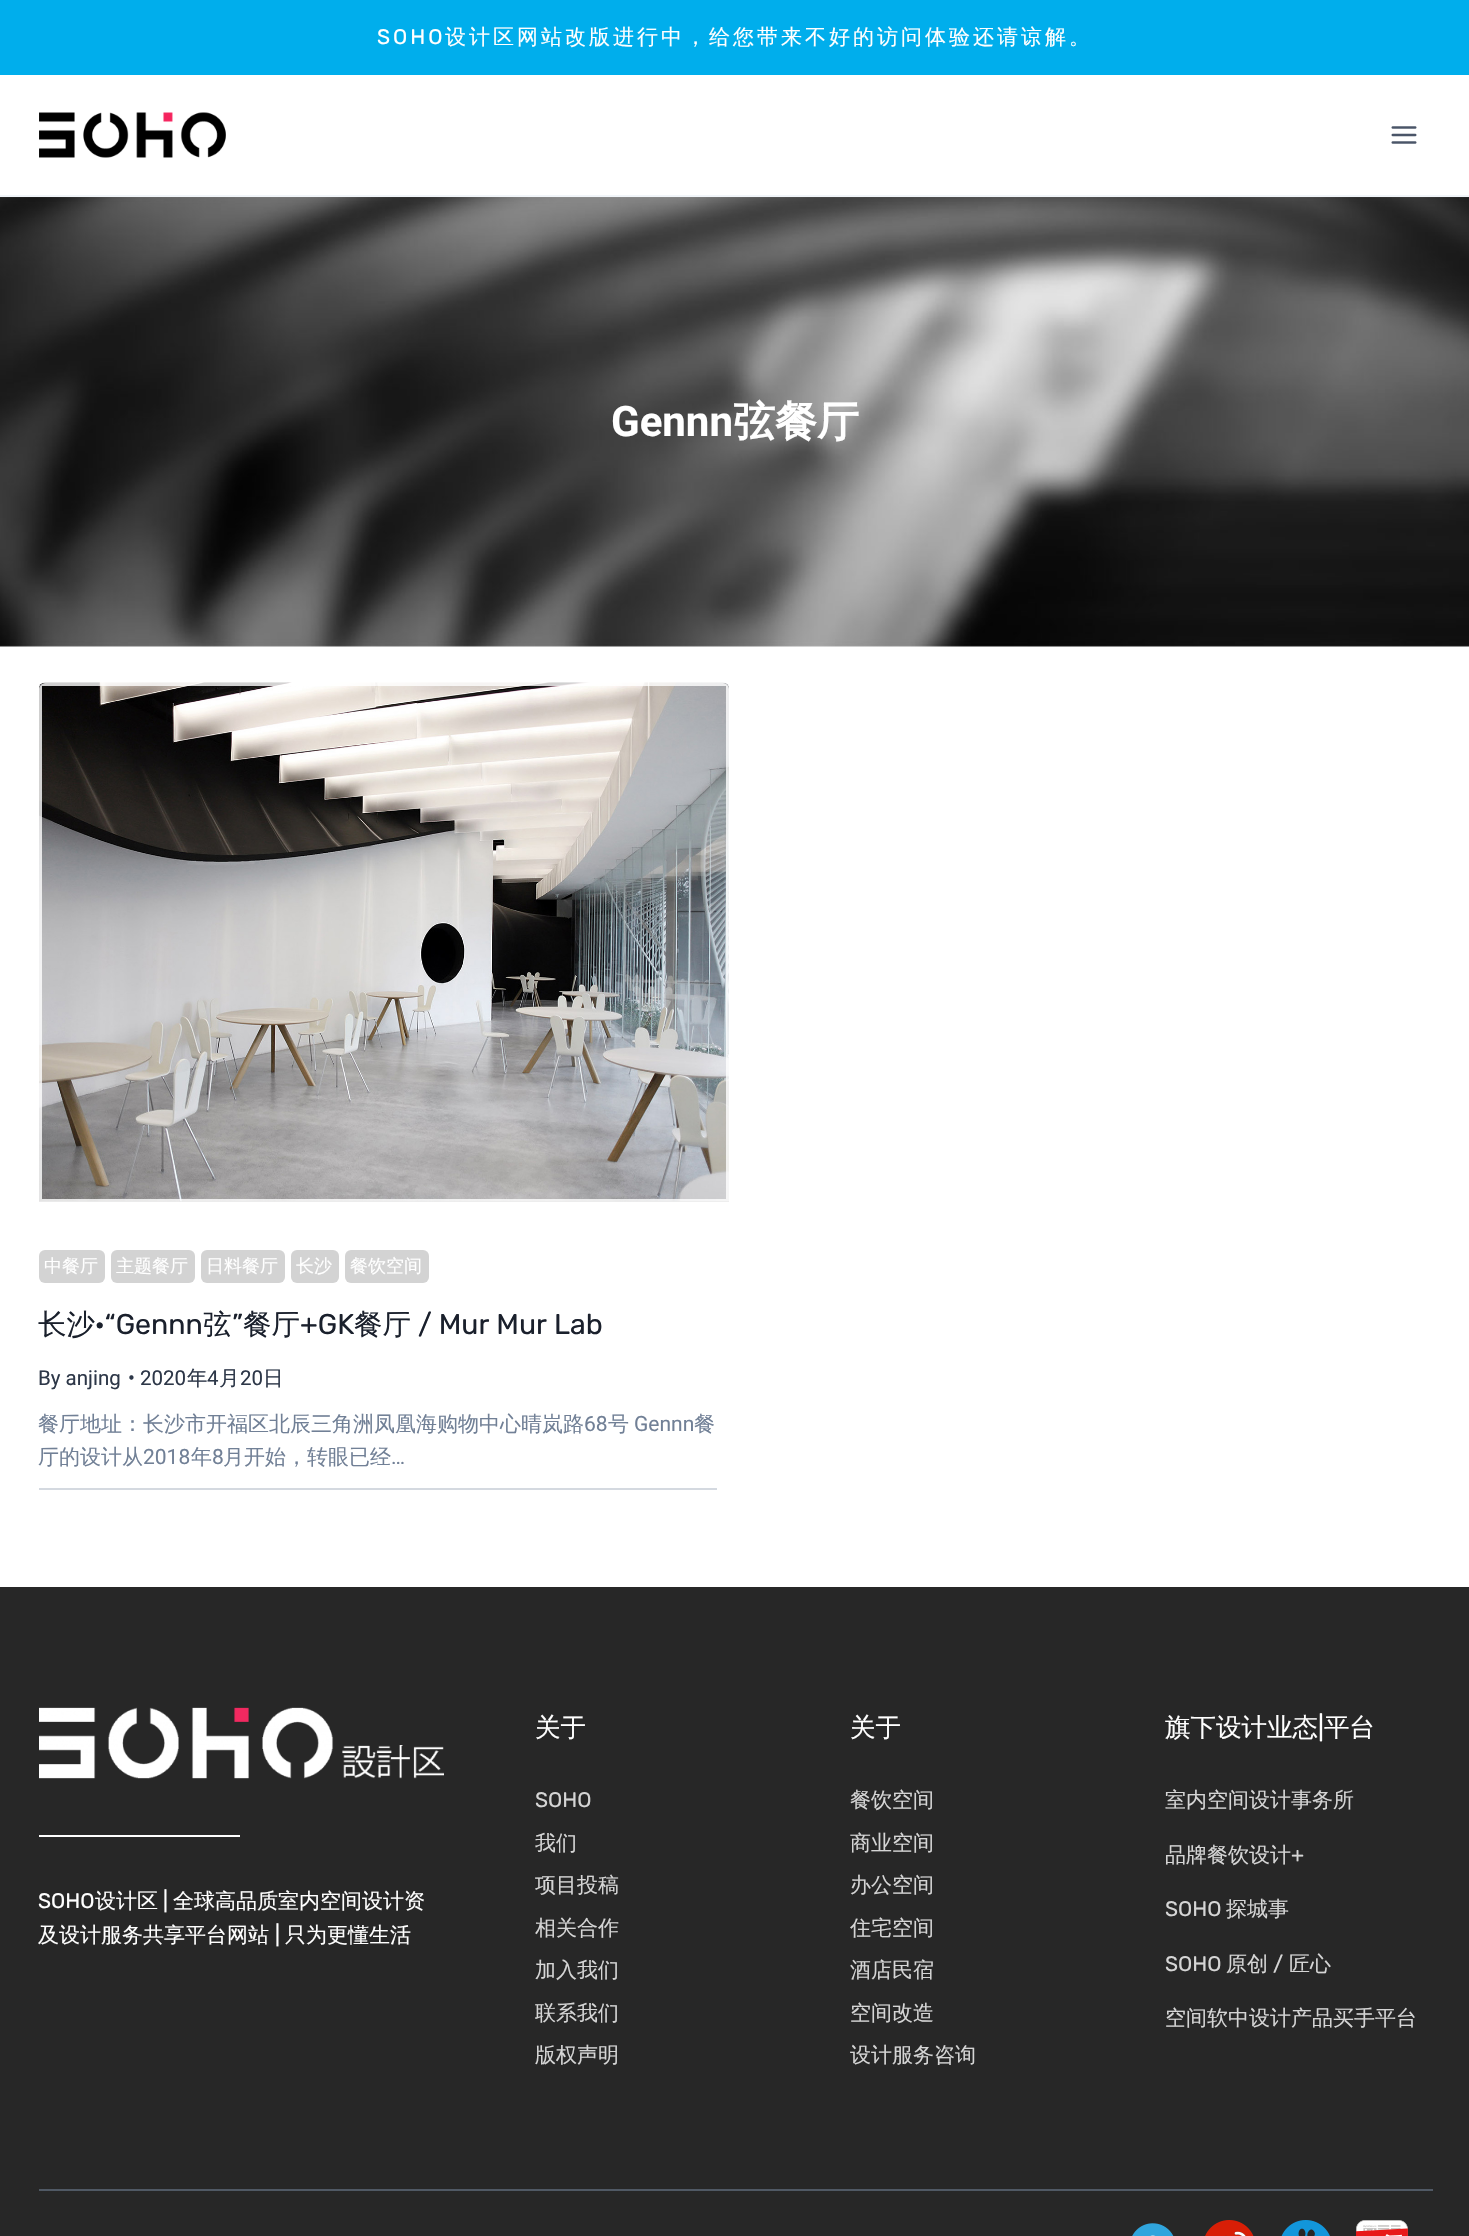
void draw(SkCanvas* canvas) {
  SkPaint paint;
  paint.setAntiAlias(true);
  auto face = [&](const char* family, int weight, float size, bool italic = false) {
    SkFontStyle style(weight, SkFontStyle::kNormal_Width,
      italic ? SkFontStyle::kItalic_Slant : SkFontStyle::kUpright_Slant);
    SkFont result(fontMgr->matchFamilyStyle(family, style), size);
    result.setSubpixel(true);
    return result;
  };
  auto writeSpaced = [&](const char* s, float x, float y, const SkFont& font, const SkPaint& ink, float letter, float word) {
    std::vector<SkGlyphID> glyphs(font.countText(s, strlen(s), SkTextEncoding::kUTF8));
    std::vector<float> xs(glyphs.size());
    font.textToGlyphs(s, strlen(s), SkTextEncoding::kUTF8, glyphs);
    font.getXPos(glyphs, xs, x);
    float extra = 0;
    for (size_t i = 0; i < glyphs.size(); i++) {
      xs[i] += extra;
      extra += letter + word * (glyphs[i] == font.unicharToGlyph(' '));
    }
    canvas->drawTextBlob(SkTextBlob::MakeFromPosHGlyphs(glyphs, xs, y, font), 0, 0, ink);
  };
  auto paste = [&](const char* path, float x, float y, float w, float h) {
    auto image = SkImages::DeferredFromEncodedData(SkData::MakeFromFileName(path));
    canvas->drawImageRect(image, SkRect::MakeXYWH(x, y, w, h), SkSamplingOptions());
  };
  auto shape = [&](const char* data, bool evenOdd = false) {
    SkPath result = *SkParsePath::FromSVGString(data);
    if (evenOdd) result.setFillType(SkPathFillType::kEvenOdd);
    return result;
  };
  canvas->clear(0xffffffff);
  paint.setColor(0xff00aeec);
  canvas->drawRect(SkRect::MakeXYWH(0, 0, 1469, 75), paint);
  paint.setColor(0xfff1f5f9);
  canvas->drawRect(SkRect::MakeXYWH(0, 195, 1469, 2), paint);
  paste("img/1.png", 39, 112, 187, 46);
  paste("img/2.png", 1391, 126, 26, 18);
  paste("img/3.png", 0, 197, 1469, 450);
  paint.setColor(0xff999999);
  canvas->drawPath(shape("M45 683H723C726.5 683 729 685.5 729 689V1202H39V689C39 685.5 41.5 683 45 683Z"), paint);
  paste("img/4.png", 39, 682, 690, 520);
  paint.setColor(0xccffffff);
  canvas->drawPath(shape("M45 683C42 683 39 686 39 689V1202H729V689C729 686 726 683 723 683ZM42 686V1199H726V686Z", true), paint);
  paint.setColor(0xffd3d3d3);
  canvas->drawRoundRect(SkRect::MakeXYWH(39, 1250, 66, 33), 6, 6, paint);
  canvas->drawRoundRect(SkRect::MakeXYWH(111, 1250, 84, 33), 6, 6, paint);
  canvas->drawRoundRect(SkRect::MakeXYWH(201, 1250, 84, 33), 6, 6, paint);
  canvas->drawRoundRect(SkRect::MakeXYWH(291, 1250, 48, 33), 6, 6, paint);
  canvas->drawRoundRect(SkRect::MakeXYWH(345, 1250, 84, 33), 6, 6, paint);
  paint.setColor(0xffd4d9e0);
  canvas->drawRect(SkRect::MakeXYWH(39, 1488, 678, 2), paint);
  paint.setColor(0xff272727);
  canvas->drawRect(SkRect::MakeXYWH(0, 1587, 1469, 649), paint);
  paste("img/5.png", 39, 1707, 405, 72);
  paint.setColor(0xffffffff);
  canvas->drawRect(SkRect::MakeXYWH(39, 1835, 201, 2), paint);
  paint.setColor(0xff505965);
  canvas->drawRect(SkRect::MakeXYWH(39, 2189, 1394, 2), paint);
  paste("img/6.png", 1132, 2223, 42, 13);
  paste("img/7.png", 1205, 2220, 49, 16);
  paste("img/8.png", 1281, 2220, 49, 16);
  paste("img/9.png", 1356, 2220, 52, 16);
  auto f0 = face("Rubik", 300, 21);
  paint.setColor(0xffffffff);
  writeSpaced("SOHO", 377, 44, f0, paint, 3, 0);
  auto f1 = face("WenQuanYi Zen Hei", 500, 21);
  writeSpaced("设计区网站改版进行中，给您带来不好的访问体验还请谅解。", 445, 44, f1, paint, 3, 0);
  auto f2 = face("Roboto", 700, 42);
  canvas->drawString("Gennn", 611, 436, f2, paint);
  auto f3 = face("WenQuanYi Zen Hei", 700, 42);
  canvas->drawString("弦餐厅", 733, 436, f3, paint);
  auto f4 = face("WenQuanYi Zen Hei", 500, 18);
  {
    const struct { const char* s; float x, y; } items[] = {
      {"中餐厅", 44, 1272},
      {"主题餐厅", 116, 1272},
      {"日料餐厅", 206, 1272},
      {"长沙", 296, 1272},
      {"餐饮空间", 350, 1272},
    };
    for (auto [s, x, y] : items) {
      canvas->drawString(s, x, y, f4, paint);
    }
  }
  auto f5 = face("WenQuanYi Zen Hei", 500, 28.5f);
  paint.setColor(0xff1a202c);
  canvas->drawString("长沙", 38, 1334, f5, paint);
  auto f6 = face("Rubik", 300, 28.5f);
  canvas->drawString("·“Gennn", 95, 1334, f6, paint);
  canvas->drawString("弦", 203, 1334, f5, paint);
  canvas->drawString("”", 232, 1334, f6, paint);
  canvas->drawString("餐厅", 243, 1334, f5, paint);
  canvas->drawString("+GK", 300, 1334, f6, paint);
  canvas->drawString("餐厅", 354, 1334, f5, paint);
  canvas->drawString("/ Mur Mur Lab", 418, 1334, f6, paint);
  auto f7 = face("Roboto", 400, 20.5f);
  paint.setColor(0xff2d3748);
  canvas->drawString("By anjing", 38, 1385, f7, paint);
  canvas->drawString("• 2020", 128, 1385, f7, paint);
  auto f8 = face("WenQuanYi Zen Hei", 500, 20.5f);
  canvas->drawString("年", 187, 1385, f8, paint);
  canvas->drawString("4", 207, 1385, f7, paint);
  canvas->drawString("月", 219, 1385, f8, paint);
  canvas->drawString("20", 240, 1385, f7, paint);
  canvas->drawString("日", 263, 1385, f8, paint);
  paint.setColor(0xff718096);
  canvas->drawString("餐厅地址：长沙市开福区北辰三角洲凤凰海购物中心晴岚路", 38, 1431, f1, paint);
  auto f9 = face("Roboto", 400, 21);
  canvas->drawString("68", 584, 1431, f9, paint);
  canvas->drawString("号", 608, 1431, f1, paint);
  canvas->drawString("Gennn", 634, 1431, f9, paint);
  canvas->drawString("餐", 694, 1431, f1, paint);
  canvas->drawString("厅的设计从", 38, 1464, f1, paint);
  canvas->drawString("2018", 143, 1464, f9, paint);
  canvas->drawString("年", 191, 1464, f1, paint);
  canvas->drawString("8", 212, 1464, f9, paint);
  canvas->drawString("月开始，转眼已经", 223, 1464, f1, paint);
  canvas->drawString("…", 391, 1464, f9, paint);
  paint.setColor(0xffffffff);
  canvas->drawString("SOHO", 38, 1908, f0, paint);
  canvas->drawString("设计区", 95, 1908, f1, paint);
  canvas->drawString("|", 163, 1908, f0, paint);
  canvas->drawString("全球高品质室内空间设计资", 173, 1908, f1, paint);
  canvas->drawString("及设计服务共享平台网站", 38, 1942, f1, paint);
  canvas->drawString("|", 275, 1942, f0, paint);
  canvas->drawString("只为更懂生活", 285, 1942, f1, paint);
  auto f10 = face("WenQuanYi Zen Hei", 500, 25.5f);
  canvas->drawString("关于", 535, 1736, f10, paint);
  paint.setColor(0xffd5d5d5);
  canvas->drawString("SOHO", 535, 1807, f0, paint);
  {
    const struct { const char* s; float x, y; } items[] = {
      {"我们", 535, 1850},
      {"项目投稿", 535, 1892},
      {"相关合作", 535, 1935},
      {"加入我们", 535, 1977},
      {"联系我们", 535, 2020},
      {"版权声明", 535, 2062},
    };
    for (auto [s, x, y] : items) {
      canvas->drawString(s, x, y, f1, paint);
    }
  }
  paint.setColor(0xffffffff);
  canvas->drawString("关于", 850, 1736, f10, paint);
  paint.setColor(0xffd5d5d5);
  {
    const struct { const char* s; float x, y; } items[] = {
      {"餐饮空间", 850, 1807},
      {"商业空间", 850, 1850},
      {"办公空间", 850, 1892},
      {"住宅空间", 850, 1935},
      {"酒店民宿", 850, 1977},
      {"空间改造", 850, 2020},
      {"设计服务咨询", 850, 2062},
    };
    for (auto [s, x, y] : items) {
      canvas->drawString(s, x, y, f1, paint);
    }
  }
  paint.setColor(0xffffffff);
  canvas->drawString("旗下设计业态", 1165, 1736, f10, paint);
  auto f11 = face("Rubik", 300, 25.5f);
  canvas->drawString("|", 1318, 1736, f11, paint);
  canvas->drawString("平台", 1324, 1736, f10, paint);
  paint.setColor(0xffd5d5d5);
  canvas->drawString("室内空间设计事务所", 1165, 1807, f1, paint);
  canvas->drawString("品牌餐饮设计", 1165, 1862, f1, paint);
  canvas->drawString("+", 1291, 1862, f0, paint);
  canvas->drawString("SOHO", 1165, 1916, f0, paint);
  canvas->drawString("探城事", 1226, 1916, f1, paint);
  canvas->drawString("SOHO", 1165, 1971, f0, paint);
  canvas->drawString("原创", 1226, 1971, f1, paint);
  canvas->drawString("/", 1273, 1971, f0, paint);
  canvas->drawString("匠心", 1289, 1971, f1, paint);
  canvas->drawString("空间软中设计产品买手平台", 1165, 2025, f1, paint);
}
